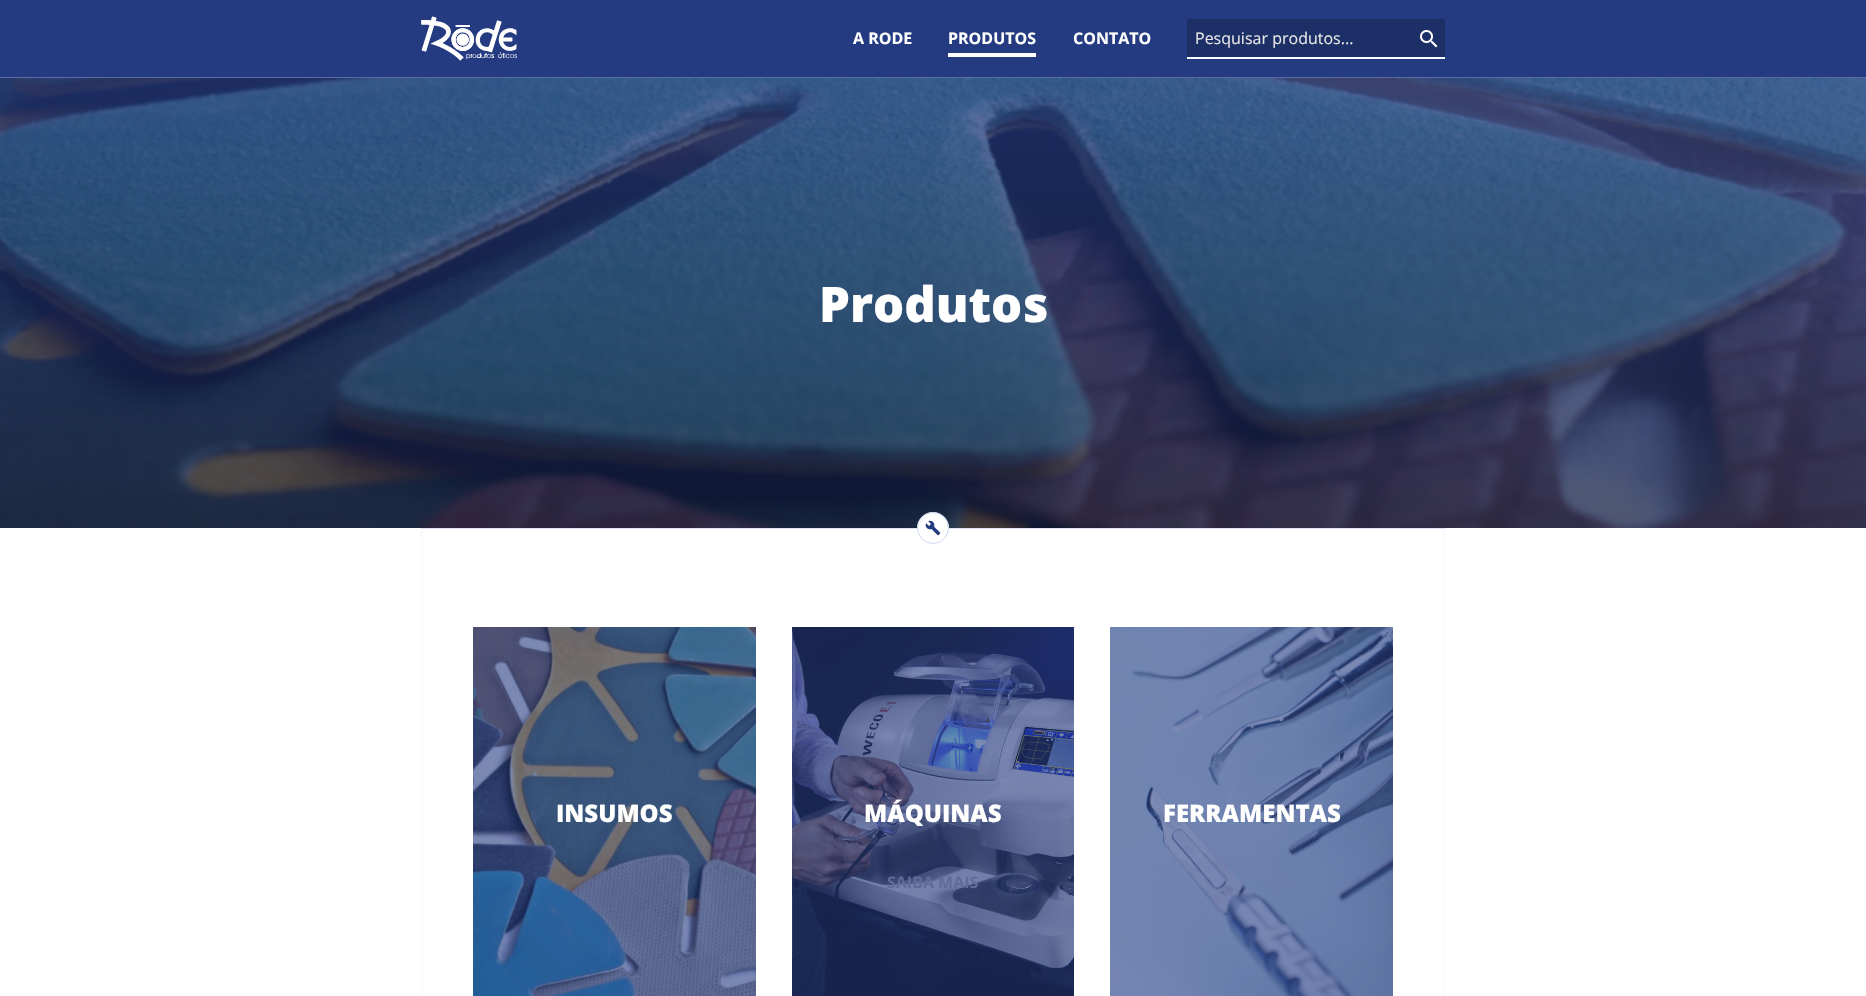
void draw(SkCanvas* canvas) {
  SkPaint paint;
  paint.setAntiAlias(true);
  auto face = [&](const char* family, int weight, float size, bool italic = false) {
    SkFontStyle style(weight, SkFontStyle::kNormal_Width,
      italic ? SkFontStyle::kItalic_Slant : SkFontStyle::kUpright_Slant);
    SkFont result(fontMgr->matchFamilyStyle(family, style), size);
    result.setSubpixel(true);
    return result;
  };
  auto paste = [&](const char* path, float x, float y, float w, float h) {
    auto image = SkImages::DeferredFromEncodedData(SkData::MakeFromFileName(path));
    canvas->drawImageRect(image, SkRect::MakeXYWH(x, y, w, h), SkSamplingOptions());
  };
  canvas->clear(0xffffffff);
  paint.setColor(0xff243b81);
  canvas->drawRect(SkRect::MakeXYWH(0, 0, 1866, 77), paint);
  paint.setColor(0xff5b6ca1);
  canvas->drawRect(SkRect::MakeXYWH(0, 77, 1866, 1), paint);
  paste("img/1.png", 421, 16, 96, 45);
  {
    const struct { float x, y, w, h; SkColor color; } items[] = {
      {948, 53, 88, 4, 0xffffffff},
      {1187, 19, 258, 38, 0xff1d2f67},
      {1187, 57, 258, 2, 0xffffffff},
    };
    for (auto [x, y, w, h, color] : items) {
      paint.setColor(color);
      canvas->drawRect(SkRect::MakeXYWH(x, y, w, h), paint);
    }
  }
  paste("img/2.png", 1420, 30, 18, 18);
  paste("img/3.png", 0, 78, 1866, 450);
  paint.setColor(0xffdee4f6);
  canvas->drawRect(SkRect::MakeXYWH(421, 528, 1024, 1), paint);
  paint.setColor(0xffffffff);
  canvas->drawCircle(933, 528, 16, paint);
  paint.setStroke(true);
  paint.setStrokeWidth(1);
  paint.setColor(0xbfbcc8ec);
  canvas->drawCircle(933, 528, 15.5f, paint);
  paste("img/4.png", 925, 520, 16, 16);
  paint.setStroke(false);
  paint.setColor(0xfffafbfe);
  canvas->drawRect(SkRect::MakeXYWH(1443, 529, 2, 467), paint);
  canvas->drawRect(SkRect::MakeXYWH(421, 529, 2, 467), paint);
  paste("img/5.png", 473, 627, 283, 369);
  paste("img/6.png", 792, 627, 282, 369);
  paste("img/7.png", 1110, 627, 283, 369);
  auto f0 = face("Open Sans", 700, 16);
  paint.setColor(0xffffffff);
  {
    const struct { const char* s; float x, y; } items[] = {
      {"A RODE", 853, 44},
      {"PRODUTOS", 948, 44},
      {"CONTATO", 1073, 44},
    };
    for (auto [s, x, y] : items) {
      canvas->drawString(s, x, y, f0, paint);
    }
  }
  auto f1 = face("Open Sans", 400, 16);
  paint.setColor(0xffe6e6e6);
  canvas->drawString("Pesquisar produtos...", 1195, 44, f1, paint);
  auto f2 = face("Open Sans", 800, 49);
  paint.setColor(0xffffffff);
  canvas->drawString("Produtos", 819, 322, f2, paint);
  auto f3 = face("Open Sans", 800, 24);
  canvas->drawString("INSUMOS", 556, 822, f3, paint);
  canvas->drawString("MÁQUINAS", 864, 822, f3, paint);
  paint.setColor(0xff5f6c97);
  canvas->drawString("SAIBA MAIS", 887, 888, f0, paint);
  paint.setColor(0xffffffff);
  canvas->drawString("FERRAMENTAS", 1163, 822, f3, paint);
}
